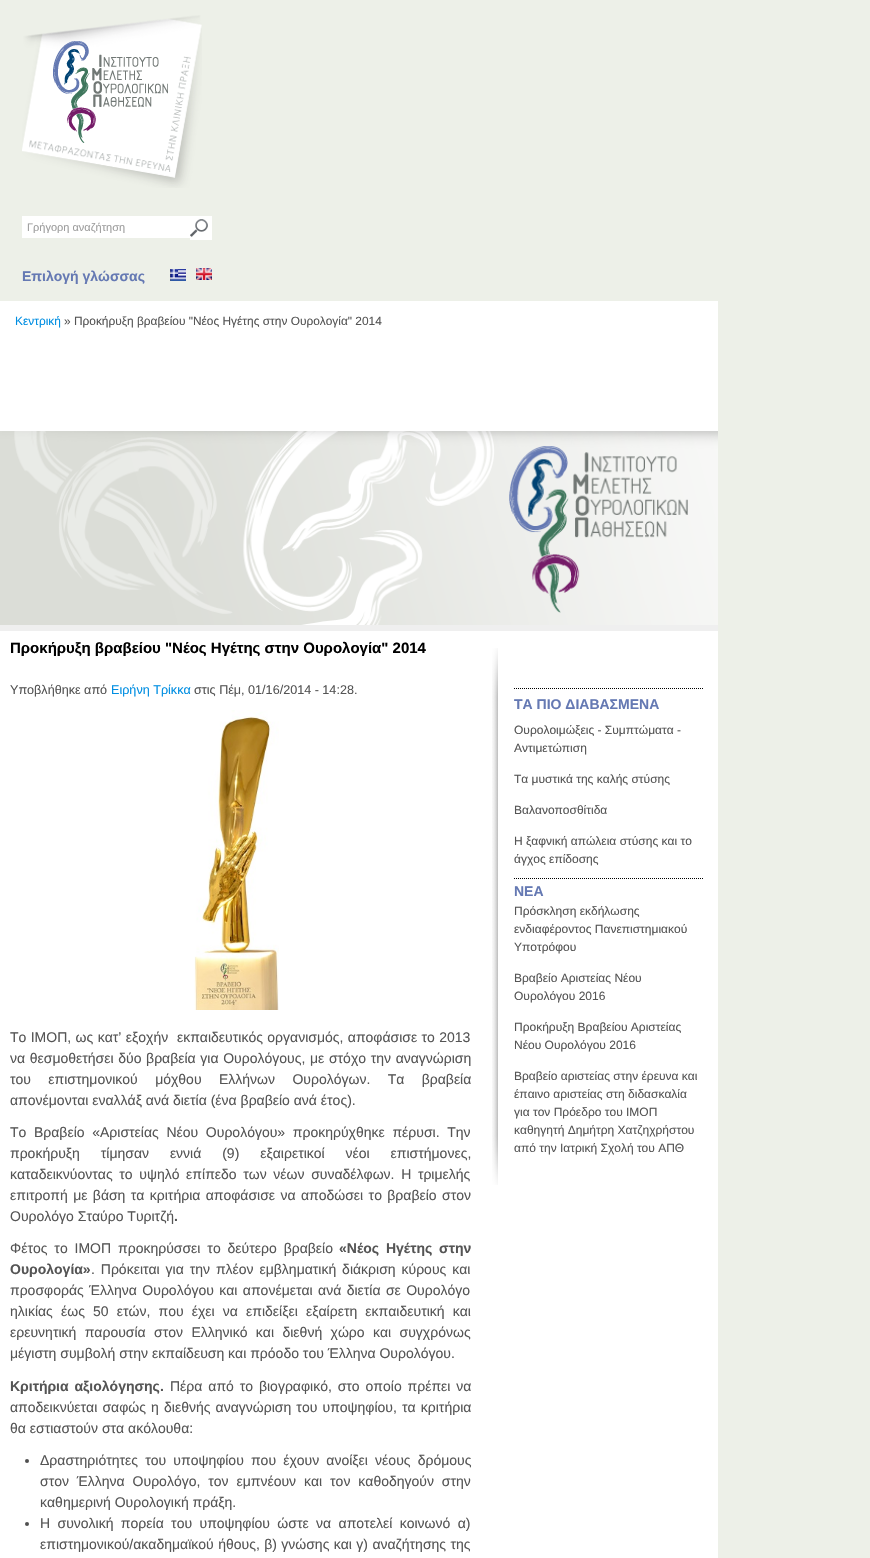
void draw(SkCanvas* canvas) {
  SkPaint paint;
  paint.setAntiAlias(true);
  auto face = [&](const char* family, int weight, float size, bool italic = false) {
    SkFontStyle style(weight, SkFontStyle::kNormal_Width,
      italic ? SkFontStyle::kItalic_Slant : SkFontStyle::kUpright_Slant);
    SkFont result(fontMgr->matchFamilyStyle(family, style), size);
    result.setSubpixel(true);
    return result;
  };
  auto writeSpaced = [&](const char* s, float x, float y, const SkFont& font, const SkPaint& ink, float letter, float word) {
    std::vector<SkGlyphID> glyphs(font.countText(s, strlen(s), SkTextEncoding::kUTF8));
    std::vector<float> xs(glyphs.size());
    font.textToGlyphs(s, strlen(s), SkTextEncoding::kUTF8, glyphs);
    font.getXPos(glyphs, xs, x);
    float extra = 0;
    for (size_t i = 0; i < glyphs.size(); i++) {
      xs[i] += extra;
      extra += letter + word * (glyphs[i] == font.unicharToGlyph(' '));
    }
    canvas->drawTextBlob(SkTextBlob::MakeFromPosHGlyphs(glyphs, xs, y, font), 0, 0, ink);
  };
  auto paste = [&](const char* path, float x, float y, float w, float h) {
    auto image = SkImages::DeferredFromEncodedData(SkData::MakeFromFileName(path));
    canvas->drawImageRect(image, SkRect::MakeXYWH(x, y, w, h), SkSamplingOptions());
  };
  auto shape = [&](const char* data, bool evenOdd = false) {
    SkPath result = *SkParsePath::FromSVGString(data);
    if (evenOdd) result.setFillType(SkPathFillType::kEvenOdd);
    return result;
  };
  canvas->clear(0xffedf0e8);
  paste("img/1.png", 22, 15, 180, 173);
  paint.setColor(0xffffffff);
  canvas->drawRect(SkRect::MakeXYWH(22, 216, 168, 22), paint);
  canvas->drawRect(SkRect::MakeXYWH(190, 216, 22, 24), paint);
  paste("img/2.png", 190, 219, 18, 18);
  paste("img/3.png", 170, 269, 16, 12);
  paste("img/4.png", 196, 268, 16, 12);
  canvas->drawRect(SkRect::MakeXYWH(0, 301, 718, 1257), paint);
  paint.setColor(0xffefefef);
  canvas->drawRect(SkRect::MakeXYWH(0, 625, 718, 6), paint);
  paste("img/5.png", 0, 431, 718, 194);
  paste("img/6.png", 194, 710, 85, 300);
  paint.setColor(0xff505050);
  canvas->drawCircle(27, 1461, 2, paint);
  canvas->drawCircle(27, 1524, 2, paint);
  paste("img/7.png", 492, 648, 6, 537);
  paste("img/8.png", 492, 698, 6, 437);
  paint.setStroke(true);
  paint.setStrokeWidth(1);
  paint.setColor(0xff000000);
  paint.setPathEffect(SkDashPathEffect::Make({{1, 1}}, 0));
  canvas->drawPath(shape("M514 688.5H704"), paint);
  paint.setPathEffect(nullptr);
  paint.setPathEffect(SkDashPathEffect::Make({{1, 1}}, 0));
  canvas->drawPath(shape("M514 878.5H704"), paint);
  paint.setPathEffect(nullptr);
  canvas->save();
  canvas->clipRect(SkRect::MakeXYWH(27, 221, 146, 12));
  auto f0 = face("Liberation Sans", 400, 11);
  paint.setStroke(false);
  paint.setColor(0xff9d9d9d);
  canvas->drawString("Γρήγορη αναζήτηση", 27, 231, f0, paint);
  canvas->restore();
  auto f1 = face("Liberation Sans", 700, 14);
  paint.setColor(0xff6579b3);
  canvas->drawString("Επιλογή γλώσσας", 22, 281, f1, paint);
  auto f2 = face("Liberation Sans", 400, 11.9f);
  paint.setColor(0xff008ee2);
  canvas->drawString("Κεντρική", 15, 325, f2, paint);
  paint.setColor(0xff555555);
  canvas->drawString("» Προκήρυξη βραβείου \"Νέος Ηγέτης στην Ουρολογία\" 2014", 64, 325, f2, paint);
  auto f3 = face("Liberation Sans", 700, 15);
  paint.setColor(0xff000000);
  canvas->drawString("Προκήρυξη βραβείου \"Νέος Ηγέτης στην Ουρολογία\" 2014", 10, 653, f3, paint);
  auto f4 = face("Liberation Sans", 400, 12.6f);
  paint.setColor(0xff555555);
  canvas->drawString("Υποβλήθηκε από", 10, 694, f4, paint);
  paint.setColor(0xff008ee2);
  canvas->drawString("Ειρήνη Τρίκκα", 111, 694, f4, paint);
  paint.setColor(0xff555555);
  canvas->drawString("στις Πέμ, 01/16/2014 - 14:28.", 194, 694, f4, paint);
  auto f5 = face("Liberation Sans", 400, 14);
  writeSpaced("Το ΙΜΟΠ, ως κατ’ εξοχήν  εκπαιδευτικός οργανισμός, αποφάσισε το 2013", 10, 1042, f5, paint, 0, 0.5f);
  writeSpaced("να θεσμοθετήσει δύο βραβεία για Ουρολόγους, με στόχο την αναγνώριση", 10, 1063, f5, paint, 0, 0.75f);
  writeSpaced("του επιστημονικού μόχθου Ελλήνων Ουρολόγων. Τα βραβεία", 10, 1084, f5, paint, 0, 13.5f);
  canvas->drawString("απονέμονται εναλλάξ ανά διετία (ένα βραβείο ανά έτος).", 10, 1105, f5, paint);
  writeSpaced("To Βραβείο «Αριστείας Νέου Ουρολόγου» προκηρύχθηκε πέρυσι. Την", 10, 1137, f5, paint, 0, 3.75f);
  writeSpaced("προκήρυξη τίμησαν εννιά (9) εξαιρετικοί νέοι επιστήμονες,", 10, 1158, f5, paint, 0, 17);
  writeSpaced("καταδεικνύοντας το υψηλό επίπεδο των νέων συναδέλφων. Η τριμελής", 10, 1179, f5, paint, 0, 2.75f);
  writeSpaced("επιτροπή με βάση τα κριτήρια αποφάσισε να αποδώσει το βραβείο στον", 10, 1200, f5, paint, 0, 1.5f);
  canvas->drawString("Ουρολόγο Σταύρο Τυριτζή", 10, 1221, f5, paint);
  canvas->drawString(".", 174, 1221, f1, paint);
  writeSpaced("Φέτος το ΙΜΟΠ προκηρύσσει το δεύτερο βραβείο", 10, 1253, f5, paint, 0, 3);
  writeSpaced("«Νέος Ηγέτης στην", 339, 1253, f1, paint, 0, 3);
  canvas->drawString("Ουρολογία»", 10, 1274, f1, paint);
  writeSpaced(". Πρόκειται για την πλέον εμβληματική διάκριση κύρους και", 91, 1274, f5, paint, 0, 2);
  writeSpaced("προσφοράς Έλληνα Ουρολόγου και απονέμεται ανά διετία σε Ουρολόγο", 10, 1295, f5, paint, 0, 1.5f);
  writeSpaced("ηλικίας έως 50 ετών, που έχει να επιδείξει εξαίρετη εκπαιδευτική και", 10, 1316, f5, paint, 0, 4.25f);
  writeSpaced("ερευνητική παρουσία στον Ελληνικό και διεθνή χώρο και συγχρόνως", 10, 1337, f5, paint, 0, 4.5f);
  canvas->drawString("μέγιστη συμβολή στην εκπαίδευση και πρόοδο του Έλληνα Ουρολόγου.", 10, 1358, f5, paint);
  writeSpaced("Κριτήρια αξιολόγησης.", 10, 1391, f1, paint, 0, 2);
  writeSpaced("Πέρα από το βιογραφικό, στο οποίο πρέπει να", 170, 1391, f5, paint, 0, 2);
  writeSpaced("αποδεικνύεται σαφώς η διεθνής αναγνώριση του υποψηφίου, τα κριτήρια", 10, 1412, f5, paint, 0, 1.25f);
  canvas->drawString("θα εστιαστούν στα ακόλουθα:", 10, 1433, f5, paint);
  writeSpaced("Δραστηριότητες του υποψηφίου που έχουν ανοίξει νέους δρόμους", 40, 1465, f5, paint, 0, 3.25f);
  writeSpaced("στον Έλληνα Ουρολόγο, τον εμπνέουν και τον καθοδηγούν στην", 40, 1486, f5, paint, 0, 4);
  canvas->drawString("καθημερινή Ουρολογική πράξη.", 40, 1507, f5, paint);
  writeSpaced("Η συνολική πορεία του υποψηφίου ώστε να αποτελεί κοινωνό α)", 40, 1528, f5, paint, 0, 3.5f);
  writeSpaced("επιστημονικού/ακαδημαϊκού ήθους, β) γνώσης και γ) αναζήτησης της", 40, 1549, f5, paint, 0, 0.5f);
  paint.setColor(0xff6579b3);
  canvas->drawString("ΤΑ ΠΙΟ ΔΙΑΒΑΣΜΕΝΑ", 514, 709, f1, paint);
  auto f6 = face("Liberation Sans", 400, 12);
  paint.setColor(0xff555555);
  {
    const struct { const char* s; float x, y; } items[] = {
      {"Ουρολοιμώξεις - Συμπτώματα -", 514, 734},
      {"Αντιμετώπιση", 514, 752},
      {"Τα μυστικά της καλής στύσης", 514, 783},
      {"Βαλανοποσθίτιδα", 514, 814},
      {"Η ξαφνική απώλεια στύσης και το", 514, 845},
      {"άγχος επίδοσης", 514, 863},
    };
    for (auto [s, x, y] : items) {
      canvas->drawString(s, x, y, f6, paint);
    }
  }
  paint.setColor(0xff6579b3);
  canvas->drawString("ΝΕΑ", 514, 896, f1, paint);
  paint.setColor(0xff555555);
  {
    const struct { const char* s; float x, y; } items[] = {
      {"Πρόσκληση εκδήλωσης", 514, 915},
      {"ενδιαφέροντος Πανεπιστημιακού", 514, 933},
      {"Υποτρόφου", 514, 951},
      {"Βραβείο Αριστείας Νέου", 514, 982},
      {"Ουρολόγου 2016", 514, 1000},
      {"Προκήρυξη Βραβείου Αριστείας", 514, 1031},
      {"Νέου Ουρολόγου 2016", 514, 1049},
      {"Βραβείο αριστείας στην έρευνα και", 514, 1080},
      {"έπαινο αριστείας στη διδασκαλία", 514, 1098},
      {"για τον Πρόεδρο του ΙΜΟΠ", 514, 1116},
      {"καθηγητή Δημήτρη Χατζηχρήστου", 514, 1134},
      {"από την Ιατρική Σχολή του ΑΠΘ", 514, 1152},
    };
    for (auto [s, x, y] : items) {
      canvas->drawString(s, x, y, f6, paint);
    }
  }
}
